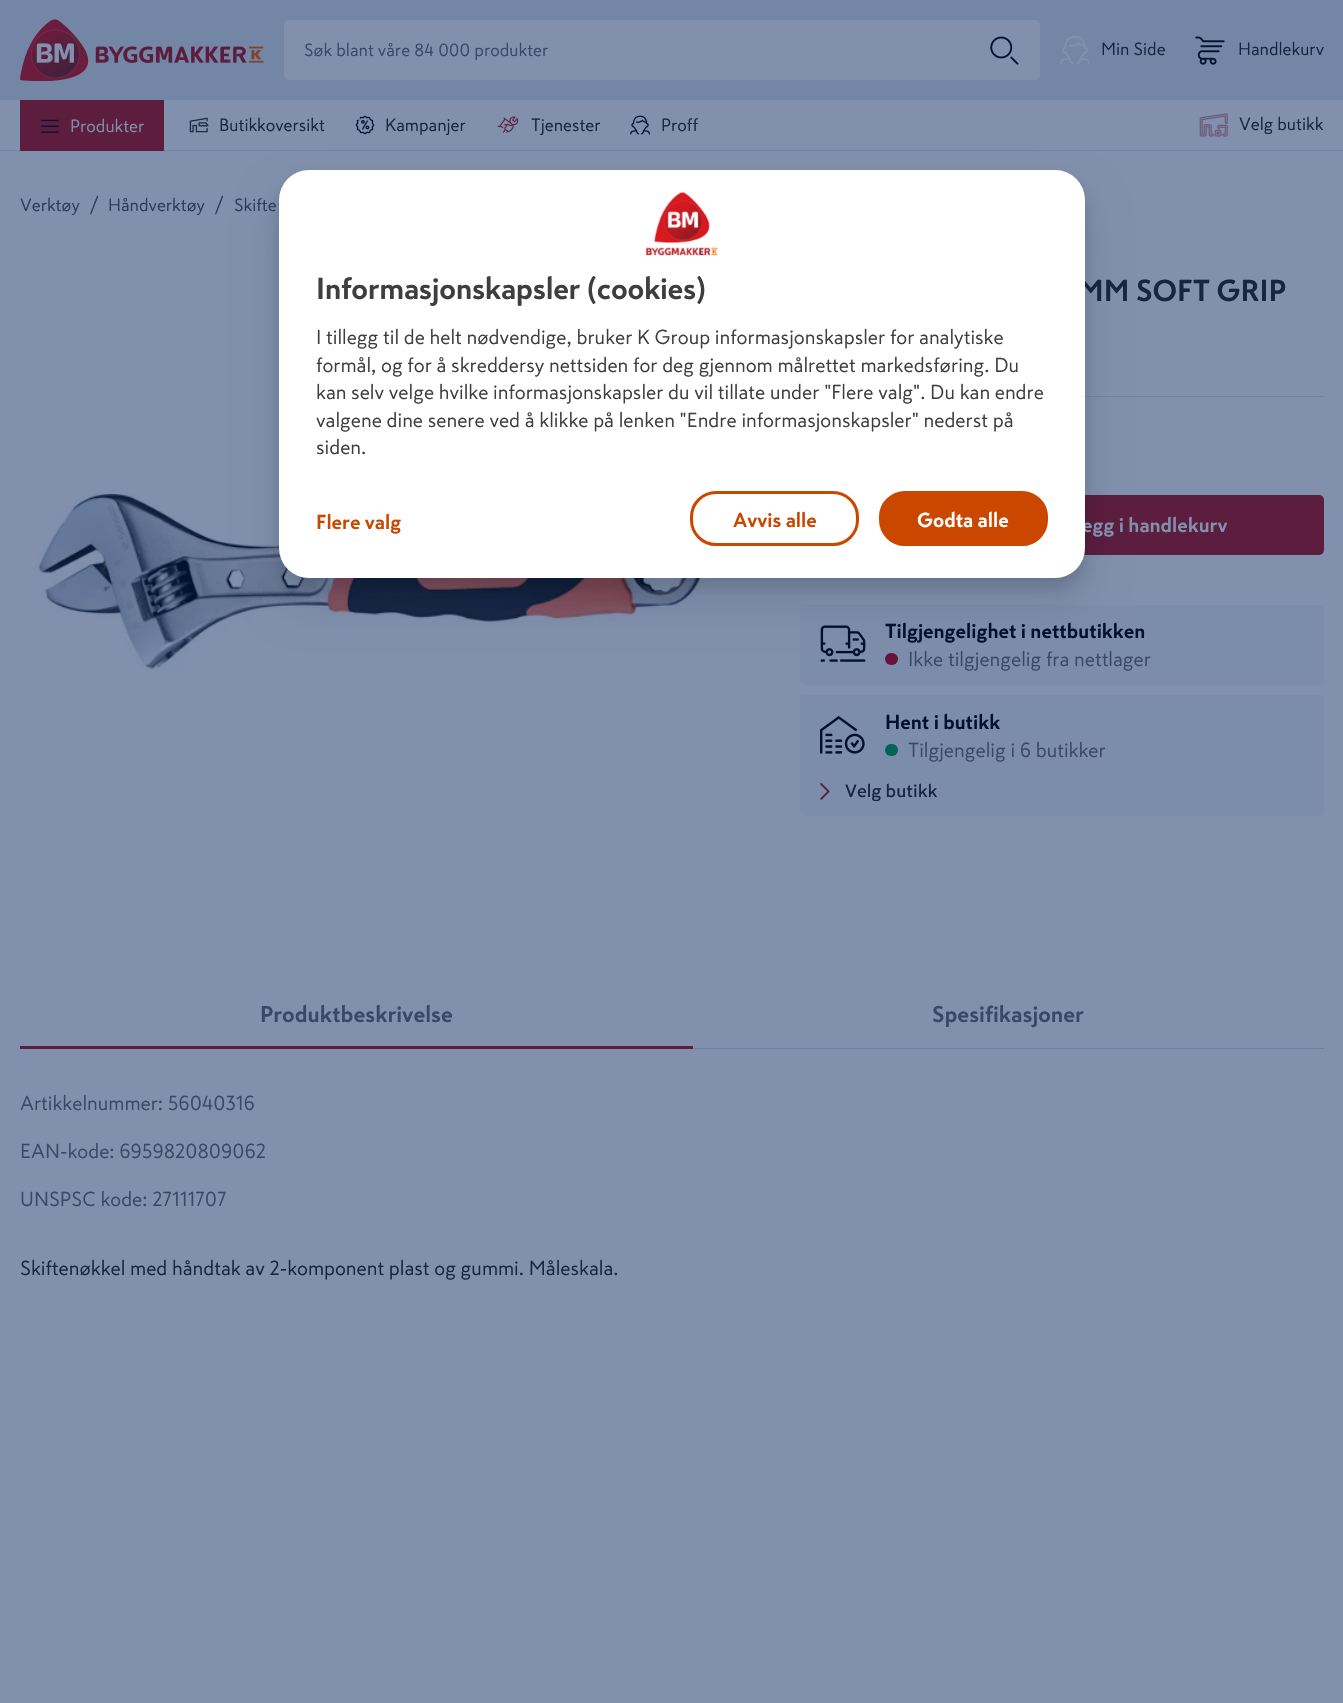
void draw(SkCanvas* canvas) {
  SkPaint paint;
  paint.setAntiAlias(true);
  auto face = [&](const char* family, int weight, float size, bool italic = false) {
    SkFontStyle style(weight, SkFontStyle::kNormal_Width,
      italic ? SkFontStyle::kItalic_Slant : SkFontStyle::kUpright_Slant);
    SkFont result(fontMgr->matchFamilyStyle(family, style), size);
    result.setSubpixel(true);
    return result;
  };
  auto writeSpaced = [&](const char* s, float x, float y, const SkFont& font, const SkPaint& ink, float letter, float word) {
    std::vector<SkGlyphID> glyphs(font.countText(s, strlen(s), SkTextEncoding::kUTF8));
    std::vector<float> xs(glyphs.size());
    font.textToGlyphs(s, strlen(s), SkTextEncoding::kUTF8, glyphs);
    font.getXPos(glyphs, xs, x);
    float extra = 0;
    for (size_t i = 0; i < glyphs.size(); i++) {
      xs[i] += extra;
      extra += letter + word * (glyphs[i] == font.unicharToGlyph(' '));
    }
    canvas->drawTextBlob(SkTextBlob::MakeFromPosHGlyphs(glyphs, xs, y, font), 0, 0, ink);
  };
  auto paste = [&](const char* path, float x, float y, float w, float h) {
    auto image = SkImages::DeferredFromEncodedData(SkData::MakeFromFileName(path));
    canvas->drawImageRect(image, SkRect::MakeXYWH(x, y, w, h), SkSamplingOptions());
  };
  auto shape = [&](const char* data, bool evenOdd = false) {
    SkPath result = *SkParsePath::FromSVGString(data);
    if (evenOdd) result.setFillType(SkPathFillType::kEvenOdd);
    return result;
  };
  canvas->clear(0xff8090ad);
  paint.setColor(0xff7386a5);
  canvas->drawRect(SkRect::MakeXYWH(0, 0, 1343, 100), paint);
  paste("img/1.png", 20, 19, 244, 62);
  paint.setColor(0xff8090ad);
  canvas->drawPath(shape("M289 20H969V80H289C286 80 284 78 284 75V25C284 22 286 20 289 20Z"), paint);
  canvas->drawPath(shape("M969 20H1035C1038 20 1040 22 1040 25V75C1040 78 1038 80 1035 80H969Z"), paint);
  paste("img/2.png", 990, 36, 29, 29);
  paste("img/3.png", 1060, 36, 30, 29);
  paste("img/4.png", 1195, 36, 30, 29);
  paint.setColor(0xff7585a3);
  canvas->drawRect(SkRect::MakeXYWH(0, 150, 1343, 1), paint);
  paint.setColor(0xff5c1d3e);
  canvas->drawRect(SkRect::MakeXYWH(20, 100, 144, 51), paint);
  paste("img/5.png", 41, 119, 18, 14);
  paste("img/6.png", 189, 117, 20, 16);
  paste("img/7.png", 355, 115, 20, 20);
  paste("img/8.png", 497, 116, 22, 17);
  paste("img/9.png", 630, 115, 20, 20);
  paste("img/10.png", 1199, 113, 29, 24);
  paste("img/11.png", 38, 491, 667, 180);
  paint.setColor(0xff7484a1);
  canvas->drawRect(SkRect::MakeXYWH(1085, 396, 239, 1), paint);
  paint.setColor(0xff5c1d3e);
  canvas->drawRoundRect(SkRect::MakeXYWH(975, 495, 349, 60), 5, 5, paint);
  paint.setColor(0xff7c8dab);
  canvas->drawRoundRect(SkRect::MakeXYWH(800, 605, 524, 80), 5, 5, paint);
  paste("img/12.png", 820, 625, 46, 37);
  paint.setColor(0xff68113b);
  canvas->drawRoundRect(SkRect::MakeXYWH(885, 653, 13, 12), 6, 6, paint);
  paint.setColor(0xff7c8dab);
  canvas->drawRoundRect(SkRect::MakeXYWH(800, 695, 524, 121), 5, 5, paint);
  paste("img/13.png", 820, 716, 45, 38);
  paint.setColor(0xff006357);
  canvas->drawRoundRect(SkRect::MakeXYWH(885, 744, 13, 12), 6, 6, paint);
  paste("img/14.png", 820, 783, 10, 17);
  paint.setColor(0xff5c1d3e);
  canvas->drawRect(SkRect::MakeXYWH(20, 1046, 673, 3), paint);
  paint.setColor(0xff6e7e9c);
  canvas->drawRect(SkRect::MakeXYWH(693, 1048, 631, 1), paint);
  paint.setColor(0x14000000);
  paint.setMaskFilter(SkMaskFilter::MakeBlur(kNormal_SkBlurStyle, 20));
  canvas->drawRoundRect(SkRect::MakeXYWH(276, 193, 812, 412), 33, 33, paint);
  paint.setMaskFilter(nullptr);
  paint.setColor(0x1f000000);
  paint.setMaskFilter(SkMaskFilter::MakeBlur(kNormal_SkBlurStyle, 7.5f));
  canvas->drawRoundRect(SkRect::MakeXYWH(279, 180, 806, 408), 30, 30, paint);
  paint.setMaskFilter(nullptr);
  auto f0 = face("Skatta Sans", 400, 17.5f);
  paint.setColor(0xff384866);
  canvas->drawString("Søk blant våre 84 000 produkter", 304, 56, f0, paint);
  paint.setColor(0xff152542);
  canvas->drawString("Min Side", 1101, 55, f0, paint);
  canvas->drawString("Handlekurv", 1238, 55, f0, paint);
  paint.setColor(0xff8090ad);
  canvas->drawString("Produkter", 70, 132, f0, paint);
  paint.setColor(0xff152542);
  {
    const struct { const char* s; float x, y; } items[] = {
      {"Butikkoversikt", 219, 131},
      {"Kampanjer", 385, 131},
      {"Tjenester", 531, 131},
      {"Proff", 661, 131},
      {"Velg butikk", 1239, 130},
    };
    for (auto [s, x, y] : items) {
      canvas->drawString(s, x, y, f0, paint);
    }
  }
  paint.setColor(0xff2a3c5b);
  canvas->drawString("Verktøy", 20, 211, f0, paint);
  auto f1 = face("Skatta Sans", 400, 20);
  canvas->drawString("/", 90, 211, f1, paint);
  canvas->drawString("Håndverktøy", 108, 211, f0, paint);
  canvas->drawString("/", 215, 211, f1, paint);
  canvas->drawString("Skifte", 234, 211, f0, paint);
  auto f2 = face("Skatta Sans", 700, 30);
  paint.setColor(0xff152542);
  canvas->drawString("MM SOFT GRIP", 1078, 301, f2, paint);
  auto f3 = face("Skatta Sans", 700, 20);
  paint.setColor(0xff8090ad);
  canvas->drawString("egg i handlekurv", 1082, 532, f3, paint);
  paint.setColor(0xff00102e);
  canvas->drawString("Tilgjengelighet i nettbutikken", 885, 638, f3, paint);
  paint.setColor(0xff384866);
  canvas->drawString("Ikke tilgjengelig fra nettlager", 908, 666, f1, paint);
  paint.setColor(0xff00102e);
  canvas->drawString("Hent i butikk", 885, 729, f3, paint);
  paint.setColor(0xff384866);
  canvas->drawString("Tilgjengelig i 6 butikker", 908, 757, f1, paint);
  auto f4 = face("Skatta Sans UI", 500, 17.5f);
  paint.setColor(0xff152542);
  canvas->drawString("Velg butikk", 845, 797, f4, paint);
  auto f5 = face("Skatta Sans", 700, 22.5f);
  paint.setColor(0xff384866);
  canvas->drawString("Produktbeskrivelse", 260, 1022, f5, paint);
  canvas->drawString("Spesifikasjoner", 932, 1022, f5, paint);
  {
    const struct { const char* s; float x, y; } items[] = {
      {"Artikkelnummer: 56040316", 20, 1110},
      {"EAN-kode: 6959820809062", 20, 1158},
      {"UNSPSC kode: 27111707", 20, 1206},
    };
    for (auto [s, x, y] : items) {
      canvas->drawString(s, x, y, f1, paint);
    }
  }
  paint.setColor(0xff152542);
  canvas->drawString("Skiftenøkkel med håndtak av 2-komponent plast og gummi. Måleskala.", 20, 1275, f1, paint);
  paint.setColor(0xffffffff);
  canvas->drawRoundRect(SkRect::MakeXYWH(279, 170, 806, 408), 30, 30, paint);
  paste("img/15.png", 645, 192, 73, 64);
  paint.setColor(0xff3e3e3e);
  writeSpaced("Informasjonskapsler (cookies)", 316, 299, f2, paint, -0.3f, 0);
  {
    const struct { const char* s; float x, y; } items[] = {
      {"I tillegg til de helt nødvendige, bruker K Group informasjonskapsler for analytiske", 316, 344},
      {"formål, og for å skreddersy nettsiden for deg gjennom målrettet markedsføring. Du", 316, 372},
      {"kan selv velge hvilke informasjonskapsler du vil tillate under \"Flere valg\". Du kan endre", 316, 399},
      {"valgene dine senere ved å klikke på lenken \"Endre informasjonskapsler\" nederst på", 316, 427},
      {"siden.", 316, 454},
    };
    for (auto [s, x, y] : items) {
      canvas->drawString(s, x, y, f1, paint);
    }
  }
  paint.setColor(0xffcb4700);
  canvas->drawString("Flere valg", 316, 529, f3, paint);
  paint.setStroke(true);
  paint.setStrokeWidth(3);
  canvas->drawRoundRect(SkRect::MakeXYWH(691.5f, 492.5f, 166, 52), 24.5f, 24.5f, paint);
  paint.setStroke(false);
  canvas->drawString("Avvis alle", 733, 527, f3, paint);
  canvas->drawRoundRect(SkRect::MakeXYWH(880.5f, 492.5f, 166, 52), 24.5f, 24.5f, paint);
  paint.setStroke(true);
  canvas->drawRoundRect(SkRect::MakeXYWH(880.5f, 492.5f, 166, 52), 24.5f, 24.5f, paint);
  paint.setStroke(false);
  paint.setColor(0xffffffff);
  canvas->drawString("Godta alle", 917, 527, f3, paint);
}
